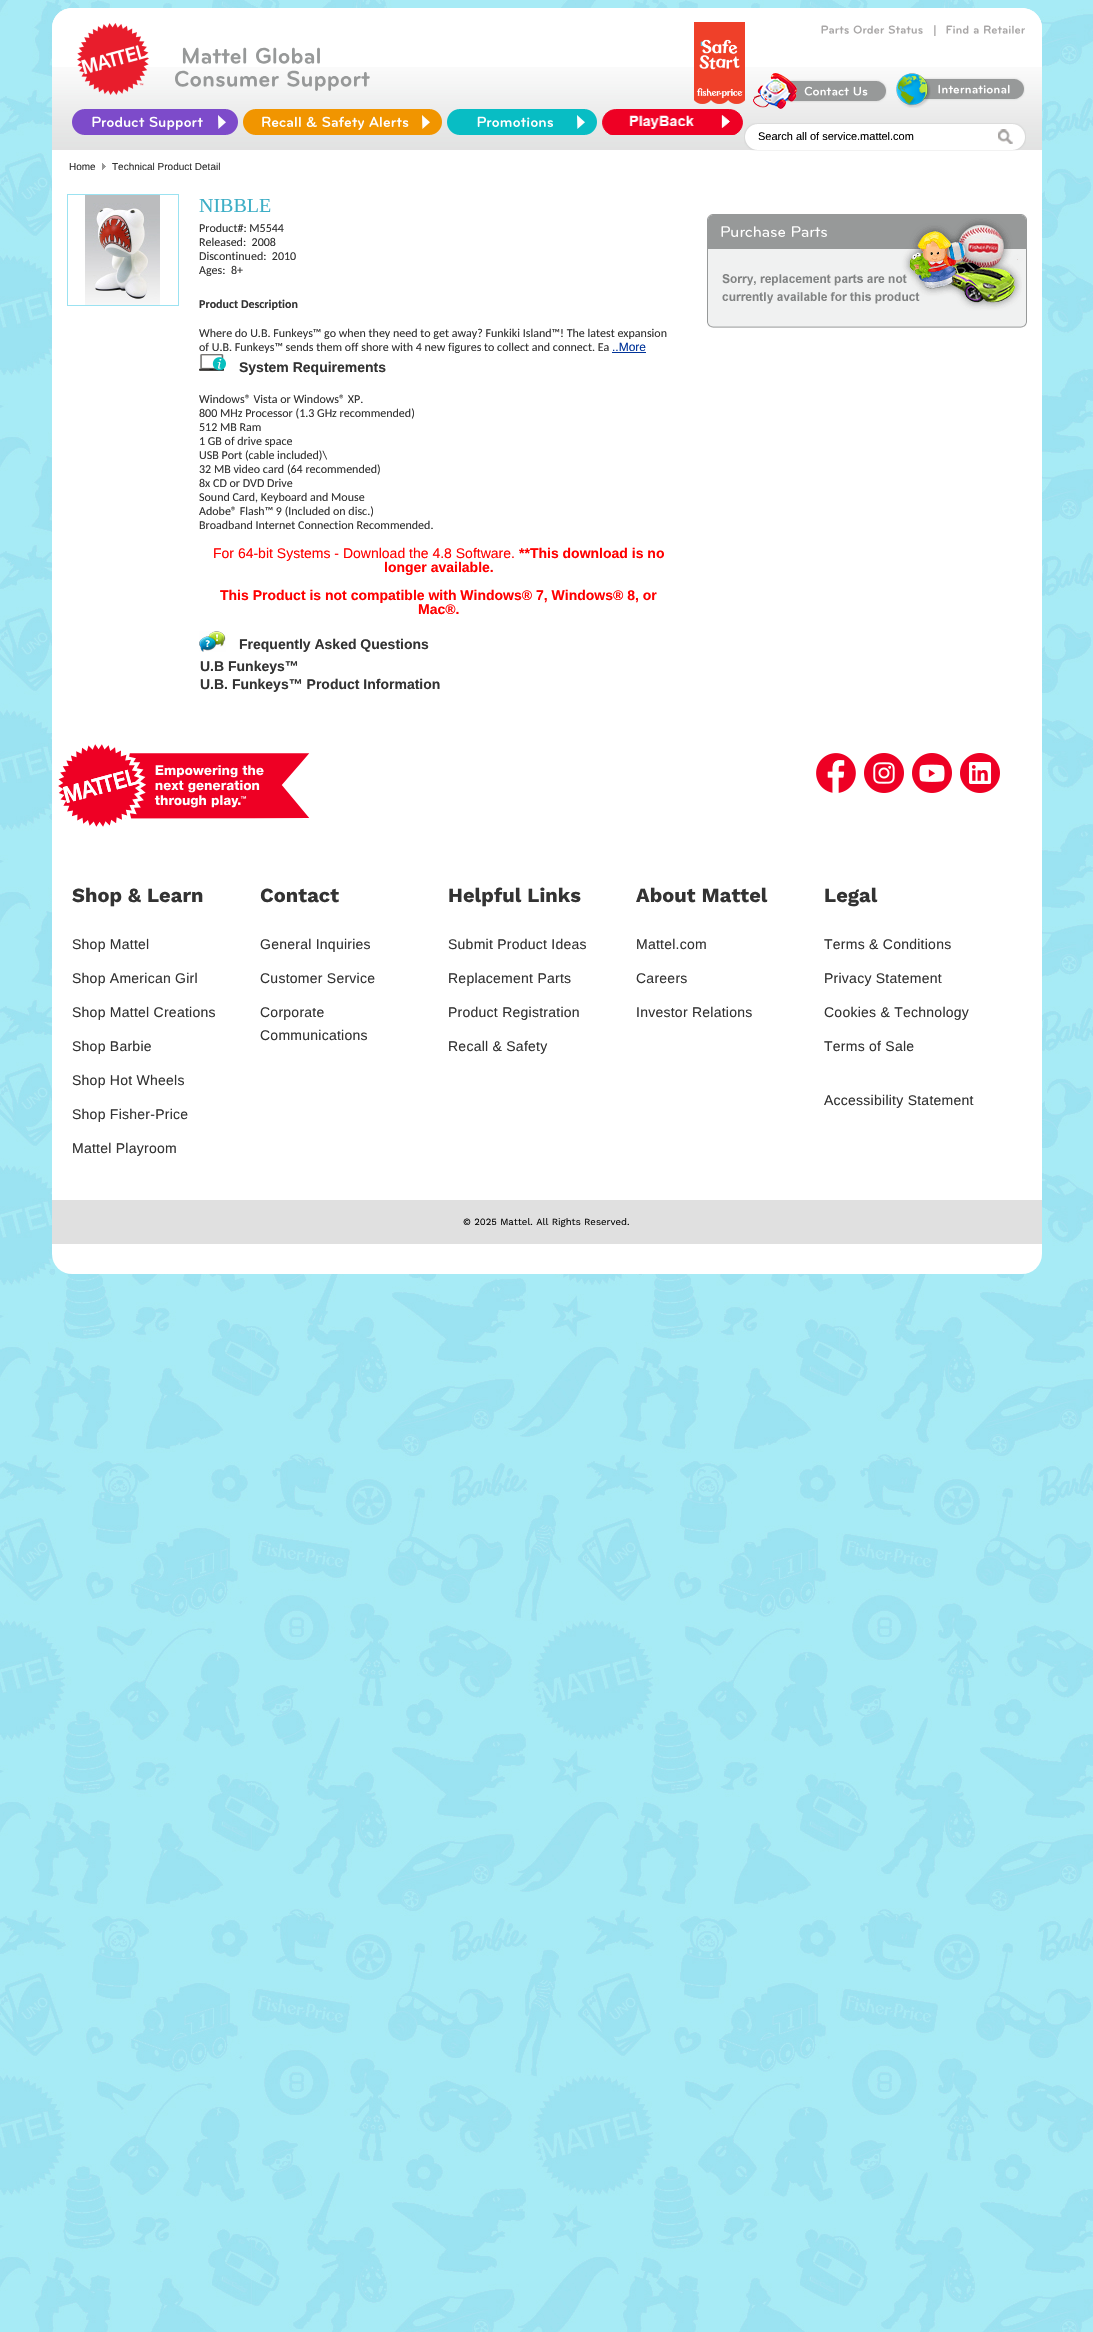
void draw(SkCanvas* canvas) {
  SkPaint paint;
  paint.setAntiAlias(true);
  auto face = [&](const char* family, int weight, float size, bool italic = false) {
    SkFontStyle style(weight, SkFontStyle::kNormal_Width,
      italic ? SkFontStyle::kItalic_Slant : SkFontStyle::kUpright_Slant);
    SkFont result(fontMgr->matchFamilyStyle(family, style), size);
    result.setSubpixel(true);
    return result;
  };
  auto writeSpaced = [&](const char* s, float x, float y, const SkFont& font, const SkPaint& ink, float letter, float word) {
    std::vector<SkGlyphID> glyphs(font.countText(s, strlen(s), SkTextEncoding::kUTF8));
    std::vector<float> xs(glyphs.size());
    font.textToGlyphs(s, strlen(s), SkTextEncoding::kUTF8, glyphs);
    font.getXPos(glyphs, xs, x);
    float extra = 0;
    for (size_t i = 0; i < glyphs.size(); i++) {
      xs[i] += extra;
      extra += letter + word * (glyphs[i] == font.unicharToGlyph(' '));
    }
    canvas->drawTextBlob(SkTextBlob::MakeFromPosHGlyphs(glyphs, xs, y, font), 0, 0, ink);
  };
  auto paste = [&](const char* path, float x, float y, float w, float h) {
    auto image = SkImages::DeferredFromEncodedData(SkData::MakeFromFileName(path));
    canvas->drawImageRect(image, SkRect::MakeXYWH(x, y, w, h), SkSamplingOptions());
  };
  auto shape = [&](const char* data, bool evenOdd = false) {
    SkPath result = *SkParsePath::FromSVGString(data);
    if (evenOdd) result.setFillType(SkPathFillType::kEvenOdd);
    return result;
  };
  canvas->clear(0xffffffff);
  paste("img/1.png", 0, 0, 1093, 2332);
  paint.setColor(0xffffffff);
  canvas->drawRoundRect(SkRect::MakeXYWH(52, 8, 990, 1266), 20, 20, paint);
  canvas->drawPath(shape("M72 8H1022C1033 8 1042 17 1042 28V150H52V28C52 17 61 8 72 8Z"), paint);
  paste("img/2.png", 52, 67, 990, 83);
  paste("img/3.png", 77, 23, 72, 72);
  paste("img/4.png", 694, 22, 51, 82);
  paste("img/5.png", 821, 25, 28, 9);
  paste("img/6.png", 853, 25, 32, 9);
  paste("img/7.png", 888, 25, 35, 9);
  paste("img/8.png", 946, 25, 23, 9);
  paste("img/9.png", 973, 28, 6, 6);
  paste("img/10.png", 984, 25, 41, 9);
  paste("img/11.png", 753, 73, 134, 36);
  paste("img/12.png", 896, 73, 129, 35);
  paste("img/13.png", 182, 47, 65, 17);
  paste("img/14.png", 256, 47, 64, 17);
  paste("img/15.png", 175, 70, 104, 17);
  paste("img/16.png", 287, 70, 83, 21);
  paste("img/17.png", 72, 109, 166, 26);
  paste("img/18.png", 243, 109, 199, 26);
  paste("img/19.png", 447, 109, 150, 26);
  paste("img/20.png", 602, 109, 141, 26);
  paste("img/21.png", 744, 123, 282, 28);
  paste("img/22.png", 998, 129, 15, 15);
  paste("img/23.png", 102, 163, 4, 7);
  paint.setStroke(true);
  paint.setStrokeWidth(1);
  paint.setColor(0xff9be2f1);
  canvas->drawRect(SkRect::MakeXYWH(67.5f, 194.5f, 111, 111), paint);
  paste("img/24.png", 85, 195, 75, 110);
  paint.setStroke(false);
  paint.setColor(0xff003399);
  canvas->drawRect(SkRect::MakeXYWH(612, 352, 34, 1), paint);
  paste("img/25.png", 199, 354, 27, 17);
  paste("img/26.png", 199, 631, 27, 21);
  paste("img/27.png", 707, 214, 320, 114);
  paste("img/28.png", 58, 744, 252, 83);
  paste("img/29.png", 816, 753, 40, 40);
  paste("img/30.png", 864, 753, 40, 40);
  paste("img/31.png", 912, 753, 40, 40);
  paste("img/32.png", 960, 753, 40, 40);
  paint.setColor(0xffe0e0e0);
  canvas->drawRect(SkRect::MakeXYWH(52, 1200, 990, 44), paint);
  auto f0 = face("Carlito", 700, 12);
  paint.setColor(0xffa9a7a7);
  canvas->drawString("|", 932, 34, f0, paint);
  auto f1 = face("Liberation Sans", 400, 11);
  paint.setColor(0xff000000);
  canvas->drawString("Search all of service.mattel.com", 758, 140, f1, paint);
  auto f2 = face("Liberation Sans", 400, 10);
  paint.setColor(0xff333333);
  canvas->drawString("Home", 69, 170, f2, paint);
  canvas->drawString("Technical Product Detail", 112, 170, f2, paint);
  auto f3 = face("Liberation Serif", 400, 20);
  paint.setColor(0xff3daec6);
  canvas->drawString("NIBBLE", 199, 212, f3, paint);
  auto f4 = face("Carlito", 400, 12);
  paint.setColor(0xff333333);
  {
    const struct { const char* s; float x, y; } items[] = {
      {"Product#: M5544", 199, 232},
      {"Released:  2008", 199, 246},
      {"Discontinued:  2010", 199, 260},
      {"Ages:  8+", 199, 274},
    };
    for (auto [s, x, y] : items) {
      canvas->drawString(s, x, y, f4, paint);
    }
  }
  canvas->drawString("Product Description", 199, 308, f0, paint);
  canvas->drawString("Where do U.B. Funkeys™ go when they need to get away? Funkiki Island™! The latest expansion", 199, 337, f4, paint);
  canvas->drawString("of U.B. Funkeys™ sends them off shore with 4 new figures to collect and connect. Ea", 199, 351, f4, paint);
  auto f5 = face("Liberation Sans", 400, 12);
  paint.setColor(0xff003399);
  canvas->drawString("..More", 612, 351, f5, paint);
  auto f6 = face("Liberation Sans", 700, 14);
  paint.setColor(0xff333333);
  canvas->drawString("System Requirements", 239, 372, f6, paint);
  {
    const struct { const char* s; float x, y; } items[] = {
      {"Windows® Vista or Windows® XP.", 199, 403},
      {"800 MHz Processor (1.3 GHz recommended)", 199, 417},
      {"512 MB Ram", 199, 431},
      {"1 GB of drive space", 199, 445},
      {"USB Port (cable included)\\", 199, 459},
      {"32 MB video card (64 recommended)", 199, 473},
      {"8x CD or DVD Drive", 199, 487},
      {"Sound Card, Keyboard and Mouse", 199, 501},
      {"Adobe® Flash™ 9 (Included on disc.)", 199, 515},
      {"Broadband Internet Connection Recommended.", 199, 529},
    };
    for (auto [s, x, y] : items) {
      canvas->drawString(s, x, y, f4, paint);
    }
  }
  auto f7 = face("Liberation Sans", 400, 14);
  paint.setColor(0xffff0000);
  canvas->drawString("For 64-bit Systems - Download the 4.8 Software.", 213, 558, f7, paint);
  {
    const struct { const char* s; float x, y; } items[] = {
      {"**This download is no", 519, 558},
      {"longer available.", 384, 572},
      {"This Product is not compatible with Windows® 7, Windows® 8, or", 220, 600},
      {"Mac®.", 418, 614},
    };
    for (auto [s, x, y] : items) {
      canvas->drawString(s, x, y, f6, paint);
    }
  }
  paint.setColor(0xff333333);
  {
    const struct { const char* s; float x, y; } items[] = {
      {"Frequently Asked Questions", 239, 649},
      {"U.B Funkeys™", 200, 671},
      {"U.B. Funkeys™ Product Information", 200, 689},
    };
    for (auto [s, x, y] : items) {
      canvas->drawString(s, x, y, f6, paint);
    }
  }
  auto f8 = face("Work Sans", 700, 20);
  writeSpaced("Shop & Learn", 72, 902, f8, paint, 0.1f, 0);
  {
    const struct { const char* s; float x, y; } items[] = {
      {"Shop Mattel", 72, 949},
      {"Shop American Girl", 72, 983},
      {"Shop Mattel Creations", 72, 1017},
      {"Shop Barbie", 72, 1051},
      {"Shop Hot Wheels", 72, 1085},
      {"Shop Fisher-Price", 72, 1119},
      {"Mattel Playroom", 72, 1153},
    };
    for (auto [s, x, y] : items) {
      writeSpaced(s, x, y, f7, paint, 0.25f, 0);
    }
  }
  writeSpaced("Contact", 260, 902, f8, paint, 0.1f, 0);
  {
    const struct { const char* s; float x, y; } items[] = {
      {"General Inquiries", 260, 949},
      {"Customer Service", 260, 983},
      {"Corporate", 260, 1017},
      {"Communications", 260, 1040},
    };
    for (auto [s, x, y] : items) {
      writeSpaced(s, x, y, f7, paint, 0.25f, 0);
    }
  }
  writeSpaced("Helpful Links", 448, 902, f8, paint, 0.1f, 0);
  {
    const struct { const char* s; float x, y; } items[] = {
      {"Submit Product Ideas", 448, 949},
      {"Replacement Parts", 448, 983},
      {"Product Registration", 448, 1017},
      {"Recall & Safety", 448, 1051},
    };
    for (auto [s, x, y] : items) {
      writeSpaced(s, x, y, f7, paint, 0.25f, 0);
    }
  }
  writeSpaced("About Mattel", 636, 902, f8, paint, 0.1f, 0);
  {
    const struct { const char* s; float x, y; } items[] = {
      {"Mattel.com", 636, 949},
      {"Careers", 636, 983},
      {"Investor Relations", 636, 1017},
    };
    for (auto [s, x, y] : items) {
      writeSpaced(s, x, y, f7, paint, 0.25f, 0);
    }
  }
  writeSpaced("Legal", 824, 902, f8, paint, 0.1f, 0);
  {
    const struct { const char* s; float x, y; } items[] = {
      {"Terms & Conditions", 824, 949},
      {"Privacy Statement", 824, 983},
      {"Cookies & Technology", 824, 1017},
      {"Terms of Sale", 824, 1051},
      {"Accessibility Statement", 824, 1105},
    };
    for (auto [s, x, y] : items) {
      writeSpaced(s, x, y, f7, paint, 0.25f, 0);
    }
  }
  auto f9 = face("Work Sans", 400, 9.6f);
  paint.setColor(0xff000000);
  canvas->drawString("© 2025 Mattel. All Rights Reserved.", 463, 1225, f9, paint);
}
